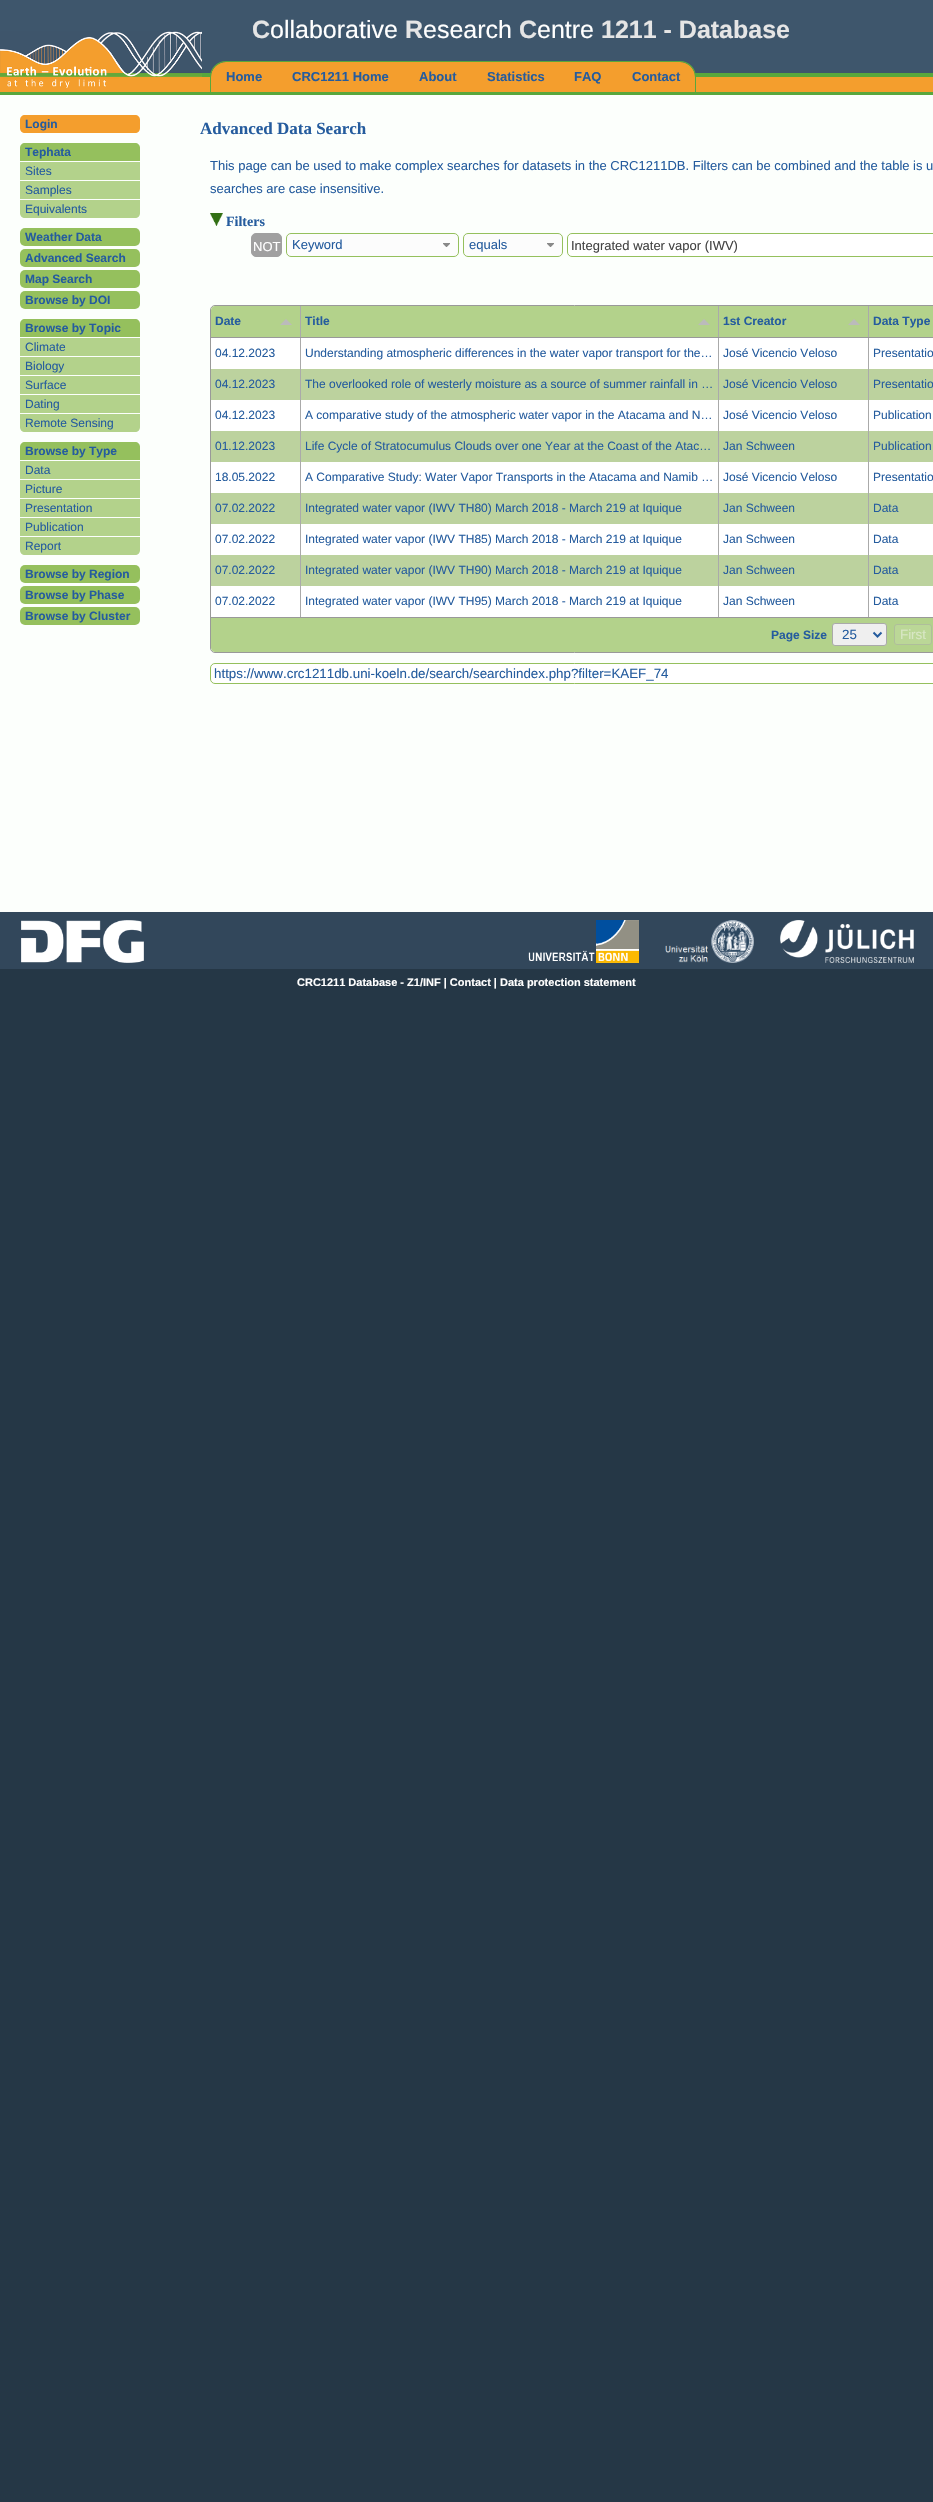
void draw(SkCanvas* canvas) {
  SkPaint paint;
  paint.setAntiAlias(true);
  auto face = [&](const char* family, int weight, float size, bool italic = false) {
    SkFontStyle style(weight, SkFontStyle::kNormal_Width,
      italic ? SkFontStyle::kItalic_Slant : SkFontStyle::kUpright_Slant);
    SkFont result(fontMgr->matchFamilyStyle(family, style), size);
    result.setSubpixel(true);
    return result;
  };
  auto paste = [&](const char* path, float x, float y, float w, float h) {
    auto image = SkImages::DeferredFromEncodedData(SkData::MakeFromFileName(path));
    canvas->drawImageRect(image, SkRect::MakeXYWH(x, y, w, h), SkSamplingOptions());
  };
  auto shape = [&](const char* data, bool evenOdd = false) {
    SkPath result = *SkParsePath::FromSVGString(data);
    if (evenOdd) result.setFillType(SkPathFillType::kEvenOdd);
    return result;
  };
  canvas->clear(0xff253746);
  {
    const struct { float x, y, w, h; SkColor color; } items[] = {
      {0, 95, 933, 817, 0xfffcfffc},
      {0, 0, 933, 73, 0xff3e566c},
      {0, 77, 933, 15, 0xfff49e2d},
      {0, 73, 933, 4, 0xff59a73c},
    };
    for (auto [x, y, w, h, color] : items) {
      paint.setColor(color);
      canvas->drawRect(SkRect::MakeXYWH(x, y, w, h), paint);
    }
  }
  paste("img/1.png", 0, 31, 202, 57);
  canvas->drawRect(SkRect::MakeXYWH(0, 92, 933, 3), paint);
  paint.setColor(0xfff49e2d);
  canvas->drawPath(shape("M226 62H277V92H211V77C211 68.5 217.5 62 226 62Z"), paint);
  paint.setColor(0xff59a73c);
  canvas->drawPath(shape("M226 61H277V92H210V77C210 68 217 61 226 61ZM226 62H277V92H211V77C211 69 218 62 226 62Z", true), paint);
  paint.setColor(0xfff49e2d);
  canvas->drawRect(SkRect::MakeXYWH(277, 62, 340, 15), paint);
  paint.setColor(0xff59a73c);
  canvas->drawRect(SkRect::MakeXYWH(277, 61, 340, 1), paint);
  paint.setColor(0xfff49e2d);
  canvas->drawPath(shape("M617 62H680C688.5 62 695 68.5 695 77V92H617Z"), paint);
  paint.setColor(0xff59a73c);
  canvas->drawPath(shape("M617 61H680C689 61 696 68 696 77V92H617ZM617 62H680C688 62 695 69 695 77V92H617Z", true), paint);
  paint.setColor(0xfff49e2d);
  canvas->drawPath(shape("M25 115H135C138 115 140 117 140 120V128H20V120C20 117 22 115 25 115Z"), paint);
  canvas->drawPath(shape("M20 128H140C140 131 138 133 135 133H25C22 133 20 131 20 128Z"), paint);
  paint.setColor(0xff95c05d);
  canvas->drawPath(shape("M25 143H135C138 143 140 145 140 148V161H20V148C20 145 22 143 25 143Z"), paint);
  paint.setColor(0xffb3d28b);
  canvas->drawRect(SkRect::MakeXYWH(20, 162, 120, 18), paint);
  canvas->drawRect(SkRect::MakeXYWH(20, 181, 120, 18), paint);
  canvas->drawPath(shape("M20 200H140V213C140 216 138 218 135 218H25C22 218 20 216 20 213Z"), paint);
  paint.setColor(0xff95c05d);
  canvas->drawRoundRect(SkRect::MakeXYWH(20, 228, 120, 18), 5, 5, paint);
  canvas->drawRoundRect(SkRect::MakeXYWH(20, 249, 120, 18), 5, 5, paint);
  canvas->drawRoundRect(SkRect::MakeXYWH(20, 270, 120, 18), 5, 5, paint);
  canvas->drawRoundRect(SkRect::MakeXYWH(20, 291, 120, 18), 5, 5, paint);
  canvas->drawPath(shape("M25 319H135C138 319 140 321 140 324V337H20V324C20 321 22 319 25 319Z"), paint);
  {
    const struct { float x, y, w, h; SkColor color; } items[] = {
      {20, 338, 120, 18, 0xffb3d28b},
      {20, 357, 120, 18, 0xffb3d28b},
      {20, 376, 120, 18, 0xffb3d28b},
      {20, 395, 120, 18, 0xffb3d28b},
    };
    for (auto [x, y, w, h, color] : items) {
      paint.setColor(color);
      canvas->drawRect(SkRect::MakeXYWH(x, y, w, h), paint);
    }
  }
  canvas->drawPath(shape("M20 414H140V427C140 430 138 432 135 432H25C22 432 20 430 20 427Z"), paint);
  paint.setColor(0xff95c05d);
  canvas->drawPath(shape("M25 442H135C138 442 140 444 140 447V460H20V447C20 444 22 442 25 442Z"), paint);
  {
    const struct { float x, y, w, h; SkColor color; } items[] = {
      {20, 461, 120, 18, 0xffb3d28b},
      {20, 480, 120, 18, 0xffb3d28b},
      {20, 499, 120, 18, 0xffb3d28b},
      {20, 518, 120, 18, 0xffb3d28b},
    };
    for (auto [x, y, w, h, color] : items) {
      paint.setColor(color);
      canvas->drawRect(SkRect::MakeXYWH(x, y, w, h), paint);
    }
  }
  canvas->drawPath(shape("M20 537H140V550C140 553 138 555 135 555H25C22 555 20 553 20 550Z"), paint);
  paint.setColor(0xff95c05d);
  canvas->drawRoundRect(SkRect::MakeXYWH(20, 565, 120, 18), 5, 5, paint);
  canvas->drawRoundRect(SkRect::MakeXYWH(20, 586, 120, 18), 5, 5, paint);
  canvas->drawRoundRect(SkRect::MakeXYWH(20, 607, 120, 18), 5, 5, paint);
  paste("img/2.png", 210, 213, 13, 13);
  paint.setColor(0xffa0a0a0);
  canvas->drawRoundRect(SkRect::MakeXYWH(251.5f, 233.5f, 30, 23), 4.5f, 4.5f, paint);
  paint.setStroke(true);
  paint.setStrokeWidth(1);
  canvas->drawRoundRect(SkRect::MakeXYWH(251.5f, 233.5f, 30, 23), 4.5f, 4.5f, paint);
  paint.setStroke(false);
  paint.setColor(0xfffcfcfc);
  canvas->drawRoundRect(SkRect::MakeXYWH(286.5f, 233.5f, 172, 23), 4.5f, 4.5f, paint);
  paint.setStroke(true);
  paint.setColor(0xff95c05d);
  canvas->drawRoundRect(SkRect::MakeXYWH(286.5f, 233.5f, 172, 23), 4.5f, 4.5f, paint);
  paste("img/3.png", 443, 243, 7, 4);
  paint.setStroke(false);
  paint.setColor(0xfffcfcfc);
  canvas->drawRoundRect(SkRect::MakeXYWH(463.5f, 233.5f, 99, 23), 4.5f, 4.5f, paint);
  paint.setStroke(true);
  paint.setColor(0xff95c05d);
  canvas->drawRoundRect(SkRect::MakeXYWH(463.5f, 233.5f, 99, 23), 4.5f, 4.5f, paint);
  paste("img/3.png", 547, 243, 7, 4);
  paint.setStroke(false);
  paint.setColor(0xffffffff);
  canvas->drawRoundRect(SkRect::MakeXYWH(567.5f, 233.5f, 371, 23), 4.5f, 4.5f, paint);
  paint.setStroke(true);
  paint.setColor(0xff95c05d);
  canvas->drawRoundRect(SkRect::MakeXYWH(567.5f, 233.5f, 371, 23), 4.5f, 4.5f, paint);
  paint.setColor(0xff999999);
  canvas->drawRoundRect(SkRect::MakeXYWH(210.5f, 305.5f, 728, 347), 4.5f, 4.5f, paint);
  paint.setStroke(false);
  canvas->drawRect(SkRect::MakeXYWH(211, 337, 722, 1), paint);
  paint.setColor(0xffb3d28b);
  canvas->drawPath(shape("M215 306H301V337H211V310C211 308 213 306 215 306Z"), paint);
  paint.setColor(0xffaaaaaa);
  canvas->drawRect(SkRect::MakeXYWH(300, 306, 1, 31), paint);
  paint.setColor(0xffbbbbbb);
  canvas->drawPath(shape("M292 325H280L286 319Z"), paint);
  paint.setColor(0xffb3d28b);
  canvas->drawRect(SkRect::MakeXYWH(301, 306, 417, 31), paint);
  paint.setColor(0xffaaaaaa);
  canvas->drawRect(SkRect::MakeXYWH(718, 306, 1, 31), paint);
  paint.setColor(0xffbbbbbb);
  canvas->drawPath(shape("M710 325H698L704 319Z"), paint);
  paint.setColor(0xffb3d28b);
  canvas->drawRect(SkRect::MakeXYWH(719, 306, 149, 31), paint);
  paint.setColor(0xffaaaaaa);
  canvas->drawRect(SkRect::MakeXYWH(868, 306, 1, 31), paint);
  paint.setColor(0xffbbbbbb);
  canvas->drawPath(shape("M860 325H848L854 319Z"), paint);
  {
    const struct { float x, y, w, h; SkColor color; } items[] = {
      {869, 306, 64, 31, 0xffb3d28b},
      {211, 338, 722, 279, 0xffffffff},
      {300, 338, 1, 31, 0xffaaaaaa},
      {718, 338, 1, 31, 0xffaaaaaa},
      {868, 338, 1, 31, 0xffaaaaaa},
      {211, 369, 722, 31, 0xffbcd29e},
      {300, 369, 1, 62, 0xffaaaaaa},
      {718, 369, 1, 62, 0xffaaaaaa},
      {868, 369, 1, 62, 0xffaaaaaa},
      {211, 431, 722, 31, 0xffbcd29e},
      {300, 431, 1, 62, 0xffaaaaaa},
      {718, 431, 1, 62, 0xffaaaaaa},
      {868, 431, 1, 62, 0xffaaaaaa},
      {211, 493, 722, 31, 0xffbcd29e},
      {300, 493, 1, 62, 0xffaaaaaa},
      {718, 493, 1, 62, 0xffaaaaaa},
      {868, 493, 1, 62, 0xffaaaaaa},
      {211, 555, 722, 31, 0xffbcd29e},
      {300, 555, 1, 62, 0xffaaaaaa},
      {718, 555, 1, 62, 0xffaaaaaa},
      {868, 555, 1, 62, 0xffaaaaaa},
    };
    for (auto [x, y, w, h, color] : items) {
      paint.setColor(color);
      canvas->drawRect(SkRect::MakeXYWH(x, y, w, h), paint);
    }
  }
  paint.setColor(0xffb3d28b);
  canvas->drawPath(shape("M211 617H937V648C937 650 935 652 933 652H215C213 652 211 650 211 648Z"), paint);
  paint.setColor(0xff999999);
  canvas->drawRect(SkRect::MakeXYWH(211, 617, 722, 1), paint);
  paint.setColor(0xffefefef);
  canvas->drawRoundRect(SkRect::MakeXYWH(832.5f, 623.5f, 54, 22), 2.5f, 2.5f, paint);
  paint.setStroke(true);
  paint.setColor(0xffaaaaaa);
  canvas->drawRoundRect(SkRect::MakeXYWH(832.5f, 623.5f, 54, 22), 2.5f, 2.5f, paint);
  paint.setStrokeWidth(2);
  paint.setColor(0xff255c9e);
  canvas->drawPath(shape("M873.5 632.5L877.5 636.5L881.5 632.5"), paint);
  paint.setStroke(false);
  paint.setColor(0xffbbd797);
  canvas->drawRoundRect(SkRect::MakeXYWH(894.5f, 624.5f, 37, 20), 2.5f, 2.5f, paint);
  paint.setStroke(true);
  paint.setStrokeWidth(1);
  paint.setColor(0xffafbe9b);
  canvas->drawRoundRect(SkRect::MakeXYWH(894.5f, 624.5f, 37, 20), 2.5f, 2.5f, paint);
  paint.setStroke(false);
  paint.setColor(0xffffffff);
  canvas->drawRoundRect(SkRect::MakeXYWH(210.5f, 663.5f, 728, 20), 4.5f, 4.5f, paint);
  paint.setStroke(true);
  paint.setColor(0xff95c05d);
  canvas->drawRoundRect(SkRect::MakeXYWH(210.5f, 663.5f, 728, 20), 4.5f, 4.5f, paint);
  paint.setStroke(false);
  paint.setColor(0xff32475b);
  canvas->drawRect(SkRect::MakeXYWH(0, 912, 933, 57), paint);
  paste("img/4.png", 21, 920, 123, 43);
  paste("img/5.png", 528, 920, 111, 43);
  paste("img/6.png", 665, 920, 89, 43);
  paste("img/7.png", 780, 920, 134, 43);
  auto f0 = face("Liberation Sans", 700, 25);
  paint.setColor(0xffe5e5e5);
  canvas->drawString("C", 252, 38, f0, paint);
  auto f1 = face("Liberation Sans", 400, 25);
  paint.setColor(0xffffffff);
  canvas->drawString("ollaborative", 270, 38, f1, paint);
  paint.setColor(0xffe5e5e5);
  canvas->drawString("R", 405, 38, f0, paint);
  paint.setColor(0xffffffff);
  canvas->drawString("esearch", 423, 38, f1, paint);
  paint.setColor(0xffe5e5e5);
  canvas->drawString("C", 519, 38, f0, paint);
  paint.setColor(0xffffffff);
  canvas->drawString("entre", 537, 38, f1, paint);
  paint.setColor(0xffe5e5e5);
  canvas->drawString("1211 - Database", 601, 38, f0, paint);
  auto f2 = face("Liberation Sans", 700, 13);
  paint.setColor(0xff255c9e);
  {
    const struct { const char* s; float x, y; } items[] = {
      {"Home", 226, 81},
      {"CRC1211 Home", 292, 81},
      {"About", 419, 81},
      {"Statistics", 487, 81},
      {"FAQ", 574, 81},
      {"Contact", 632, 81},
    };
    for (auto [s, x, y] : items) {
      canvas->drawString(s, x, y, f2, paint);
    }
  }
  auto f3 = face("Liberation Sans", 700, 12);
  canvas->drawString("Login", 25, 128, f3, paint);
  canvas->drawString("Tephata", 25, 156, f3, paint);
  auto f4 = face("Liberation Sans", 400, 12);
  {
    const struct { const char* s; float x, y; } items[] = {
      {"Sites", 25, 175},
      {"Samples", 25, 194},
      {"Equivalents", 25, 213},
    };
    for (auto [s, x, y] : items) {
      canvas->drawString(s, x, y, f4, paint);
    }
  }
  {
    const struct { const char* s; float x, y; } items[] = {
      {"Weather Data", 25, 241},
      {"Advanced Search", 25, 262},
      {"Map Search", 25, 283},
      {"Browse by DOI", 25, 304},
      {"Browse by Topic", 25, 332},
    };
    for (auto [s, x, y] : items) {
      canvas->drawString(s, x, y, f3, paint);
    }
  }
  {
    const struct { const char* s; float x, y; } items[] = {
      {"Climate", 25, 351},
      {"Biology", 25, 370},
      {"Surface", 25, 389},
      {"Dating", 25, 408},
      {"Remote Sensing", 25, 427},
    };
    for (auto [s, x, y] : items) {
      canvas->drawString(s, x, y, f4, paint);
    }
  }
  canvas->drawString("Browse by Type", 25, 455, f3, paint);
  {
    const struct { const char* s; float x, y; } items[] = {
      {"Data", 25, 474},
      {"Picture", 25, 493},
      {"Presentation", 25, 512},
      {"Publication", 25, 531},
      {"Report", 25, 550},
    };
    for (auto [s, x, y] : items) {
      canvas->drawString(s, x, y, f4, paint);
    }
  }
  {
    const struct { const char* s; float x, y; } items[] = {
      {"Browse by Region", 25, 578},
      {"Browse by Phase", 25, 599},
      {"Browse by Cluster", 25, 620},
    };
    for (auto [s, x, y] : items) {
      canvas->drawString(s, x, y, f3, paint);
    }
  }
  auto f5 = face("Liberation Serif", 700, 17);
  canvas->drawString("Advanced Data Search", 200, 134, f5, paint);
  auto f6 = face("Liberation Sans", 400, 13);
  canvas->drawString("This page can be used to make complex searches for datasets in the CRC1211DB. Filters can be combined and the table is u", 210, 170, f6, paint);
  canvas->drawString("searches are case insensitive.", 210, 193, f6, paint);
  auto f7 = face("Liberation Serif", 700, 14);
  canvas->drawString("Filters", 226, 226, f7, paint);
  paint.setColor(0xffffffff);
  canvas->drawString("NOT", 253, 251, f6, paint);
  paint.setColor(0xff255c9e);
  canvas->drawString("Keyword", 292, 249, f6, paint);
  canvas->drawString("equals", 469, 249, f6, paint);
  paint.setColor(0xff444444);
  canvas->drawString("Integrated water vapor (IWV)", 571, 250, f6, paint);
  paint.setColor(0xff255c9e);
  {
    const struct { const char* s; float x, y; } items[] = {
      {"Date", 215, 325},
      {"Title", 305, 325},
      {"1st Creator", 723, 325},
      {"Data Type", 873, 325},
    };
    for (auto [s, x, y] : items) {
      canvas->drawString(s, x, y, f3, paint);
    }
  }
  {
    const struct { const char* s; float x, y; } items[] = {
      {"04.12.2023", 215, 357},
      {"Understanding atmospheric differences in the water vapor transport for the…", 305, 357},
      {"José Vicencio Veloso", 723, 357},
      {"Presentatio", 873, 357},
      {"04.12.2023", 215, 388},
      {"The overlooked role of westerly moisture as a source of summer rainfall in …", 305, 388},
      {"José Vicencio Veloso", 723, 388},
      {"Presentatio", 873, 388},
      {"04.12.2023", 215, 419},
      {"A comparative study of the atmospheric water vapor in the Atacama and N…", 305, 419},
      {"José Vicencio Veloso", 723, 419},
      {"Publication", 873, 419},
      {"01.12.2023", 215, 450},
      {"Life Cycle of Stratocumulus Clouds over one Year at the Coast of the Atac…", 305, 450},
      {"Jan Schween", 723, 450},
      {"Publication", 873, 450},
      {"18.05.2022", 215, 481},
      {"A Comparative Study: Water Vapor Transports in the Atacama and Namib …", 305, 481},
      {"José Vicencio Veloso", 723, 481},
      {"Presentatio", 873, 481},
      {"07.02.2022", 215, 512},
      {"Integrated water vapor (IWV TH80) March 2018 - March 219 at Iquique", 305, 512},
      {"Jan Schween", 723, 512},
      {"Data", 873, 512},
      {"07.02.2022", 215, 543},
      {"Integrated water vapor (IWV TH85) March 2018 - March 219 at Iquique", 305, 543},
      {"Jan Schween", 723, 543},
      {"Data", 873, 543},
      {"07.02.2022", 215, 574},
      {"Integrated water vapor (IWV TH90) March 2018 - March 219 at Iquique", 305, 574},
      {"Jan Schween", 723, 574},
      {"Data", 873, 574},
      {"07.02.2022", 215, 605},
      {"Integrated water vapor (IWV TH95) March 2018 - March 219 at Iquique", 305, 605},
      {"Jan Schween", 723, 605},
      {"Data", 873, 605},
    };
    for (auto [s, x, y] : items) {
      canvas->drawString(s, x, y, f4, paint);
    }
  }
  canvas->drawString("Page Size", 771, 639, f3, paint);
  auto f8 = face("Liberation Sans", 400, 13.35f);
  canvas->drawString("25", 842, 639, f8, paint);
  paint.setColor(0xffd8e7c4);
  canvas->drawString("First", 900, 639, f8, paint);
  paint.setColor(0xff255c9e);
  canvas->drawString("https://www.crc1211db.uni-koeln.de/search/searchindex.php?filter=KAEF_74", 214, 678, f8, paint);
  auto f9 = face("Liberation Sans", 700, 11);
  paint.setColor(0xffffffff);
  canvas->drawString("CRC1211 Database - Z1/INF | Contact | Data protection statement", 297, 986, f9, paint);
}
